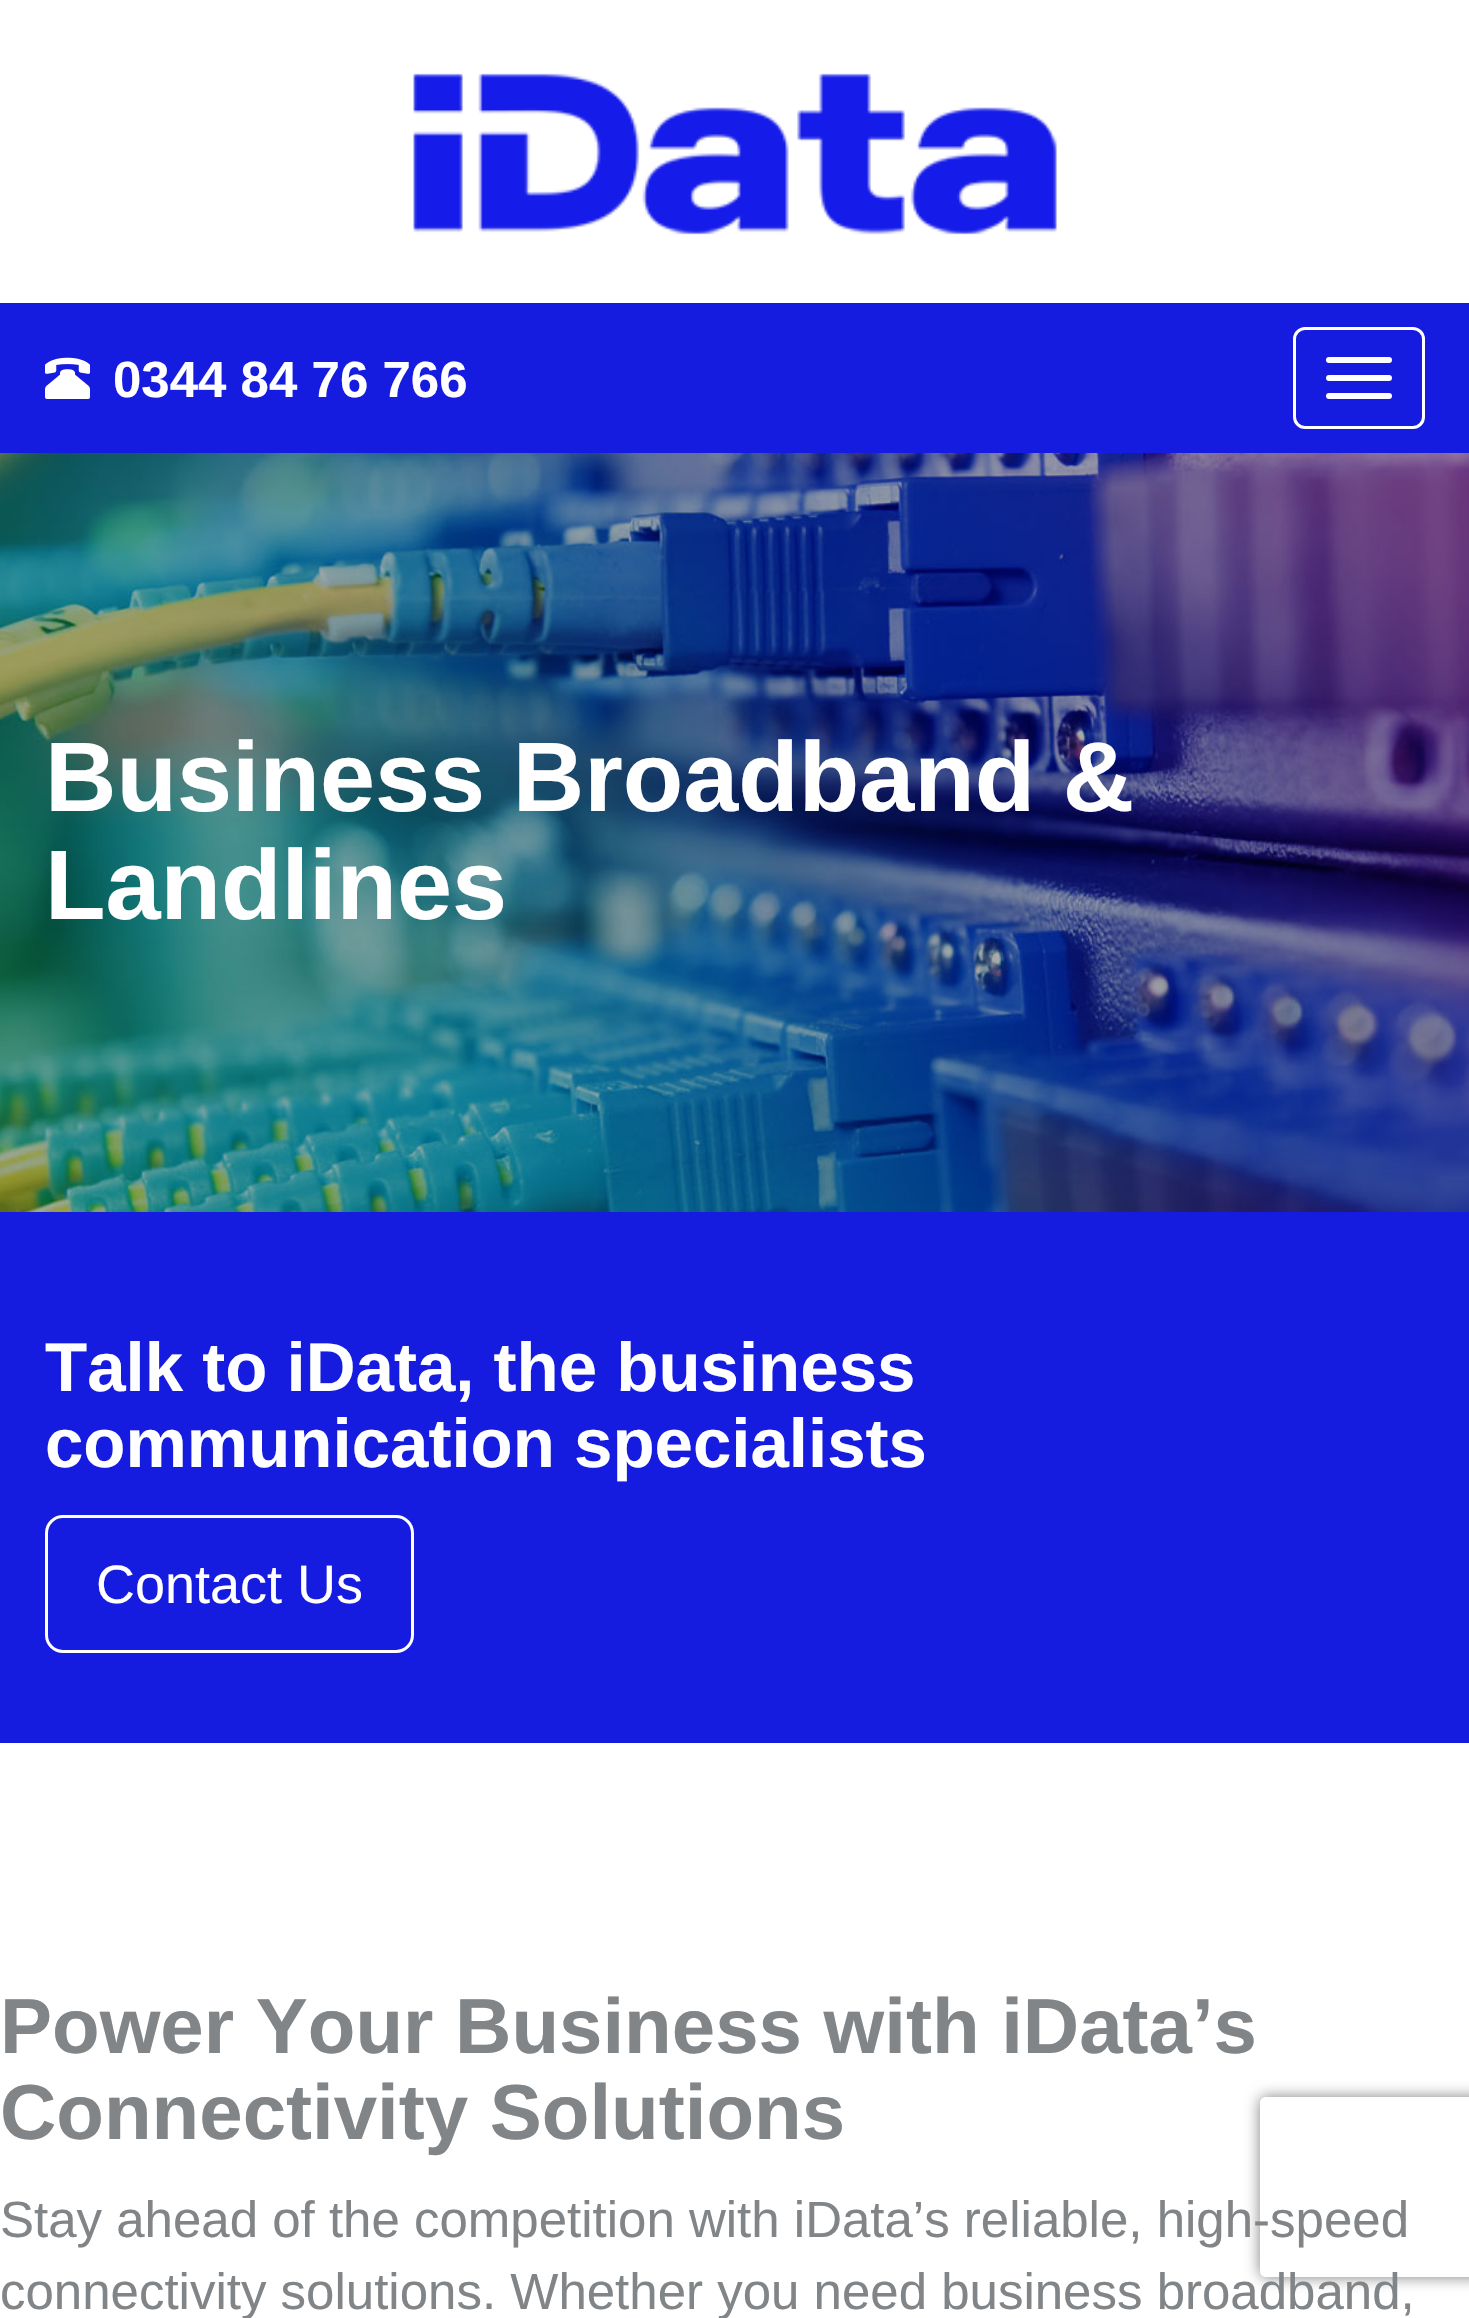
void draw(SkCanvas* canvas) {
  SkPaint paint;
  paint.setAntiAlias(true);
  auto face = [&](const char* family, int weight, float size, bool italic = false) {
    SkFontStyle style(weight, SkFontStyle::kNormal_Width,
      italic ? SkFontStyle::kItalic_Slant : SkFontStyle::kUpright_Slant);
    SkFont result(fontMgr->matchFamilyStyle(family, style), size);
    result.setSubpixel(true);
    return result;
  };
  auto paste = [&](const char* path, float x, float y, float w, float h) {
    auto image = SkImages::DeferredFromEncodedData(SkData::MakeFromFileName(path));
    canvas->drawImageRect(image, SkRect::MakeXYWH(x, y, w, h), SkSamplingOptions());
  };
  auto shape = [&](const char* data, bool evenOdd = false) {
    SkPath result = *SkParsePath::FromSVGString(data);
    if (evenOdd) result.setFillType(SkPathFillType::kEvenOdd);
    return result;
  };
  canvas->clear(0xffffffff);
  paste("img/1.png", 413, 73, 644, 162);
  paint.setColor(0xff161be0);
  canvas->drawRect(SkRect::MakeXYWH(0, 303, 1469, 150), paint);
  paste("img/2.png", 45, 357, 45, 42);
  paint.setStroke(true);
  paint.setStrokeWidth(3);
  paint.setColor(0xffffffff);
  canvas->drawRoundRect(SkRect::MakeXYWH(1294.5f, 328.5f, 129, 99), 10.5f, 10.5f, paint);
  paint.setStroke(false);
  canvas->drawRoundRect(SkRect::MakeXYWH(1326, 357, 66, 6), 3, 3, paint);
  canvas->drawRoundRect(SkRect::MakeXYWH(1326, 375, 66, 6), 3, 3, paint);
  canvas->drawRoundRect(SkRect::MakeXYWH(1326, 393, 66, 6), 3, 3, paint);
  paste("img/3.png", 0, 453, 1469, 759);
  paint.setColor(0xff161be0);
  canvas->drawRect(SkRect::MakeXYWH(0, 1212, 1469, 531), paint);
  paint.setStroke(true);
  paint.setColor(0xffffffff);
  canvas->drawRoundRect(SkRect::MakeXYWH(46.5f, 1516.5f, 366, 135), 16.5f, 16.5f, paint);
  canvas->save();
  canvas->clipPath(shape("M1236 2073H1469V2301H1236ZM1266 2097H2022C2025.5 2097 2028 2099.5 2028 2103V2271C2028 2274.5 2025.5 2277 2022 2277H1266C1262.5 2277 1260 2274.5 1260 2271V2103C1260 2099.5 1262.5 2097 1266 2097Z", true), true);
  paint.setStroke(false);
  paint.setColor(0xff808080);
  paint.setMaskFilter(SkMaskFilter::MakeBlur(kNormal_SkBlurStyle, 7.5f));
  canvas->drawRoundRect(SkRect::MakeXYWH(1260, 2097, 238, 180), 6, 6, paint);
  paint.setMaskFilter(nullptr);
  canvas->restore();
  auto f0 = face("Liberation Sans", 700, 51);
  paint.setColor(0xffffffff);
  canvas->drawString("0344 84 76 766", 113, 397, f0, paint);
  auto f1 = face("Liberation Sans", 700, 99);
  canvas->drawString("Business Broadband &", 45, 811, f1, paint);
  canvas->drawString("Landlines", 45, 919, f1, paint);
  auto f2 = face("Liberation Sans", 700, 69);
  canvas->drawString("Talk to iData, the business", 45, 1391, f2, paint);
  canvas->drawString("communication specialists", 45, 1467, f2, paint);
  auto f3 = face("Liberation Sans", 400, 54);
  canvas->drawString("Contact Us", 96, 1603, f3, paint);
  auto f4 = face("Liberation Sans", 700, 78);
  paint.setColor(0xff828587);
  canvas->drawString("Power Your Business with iData’s", 0, 2053, f4, paint);
  canvas->drawString("Connectivity Solutions", 0, 2139, f4, paint);
  auto f5 = face("Liberation Sans", 400, 51);
  canvas->drawString("Stay ahead of the competition with iData’s reliable, high-speed", 0, 2237, f5, paint);
  canvas->drawString("connectivity solutions. Whether you need business broadband,", 0, 2309, f5, paint);
}
